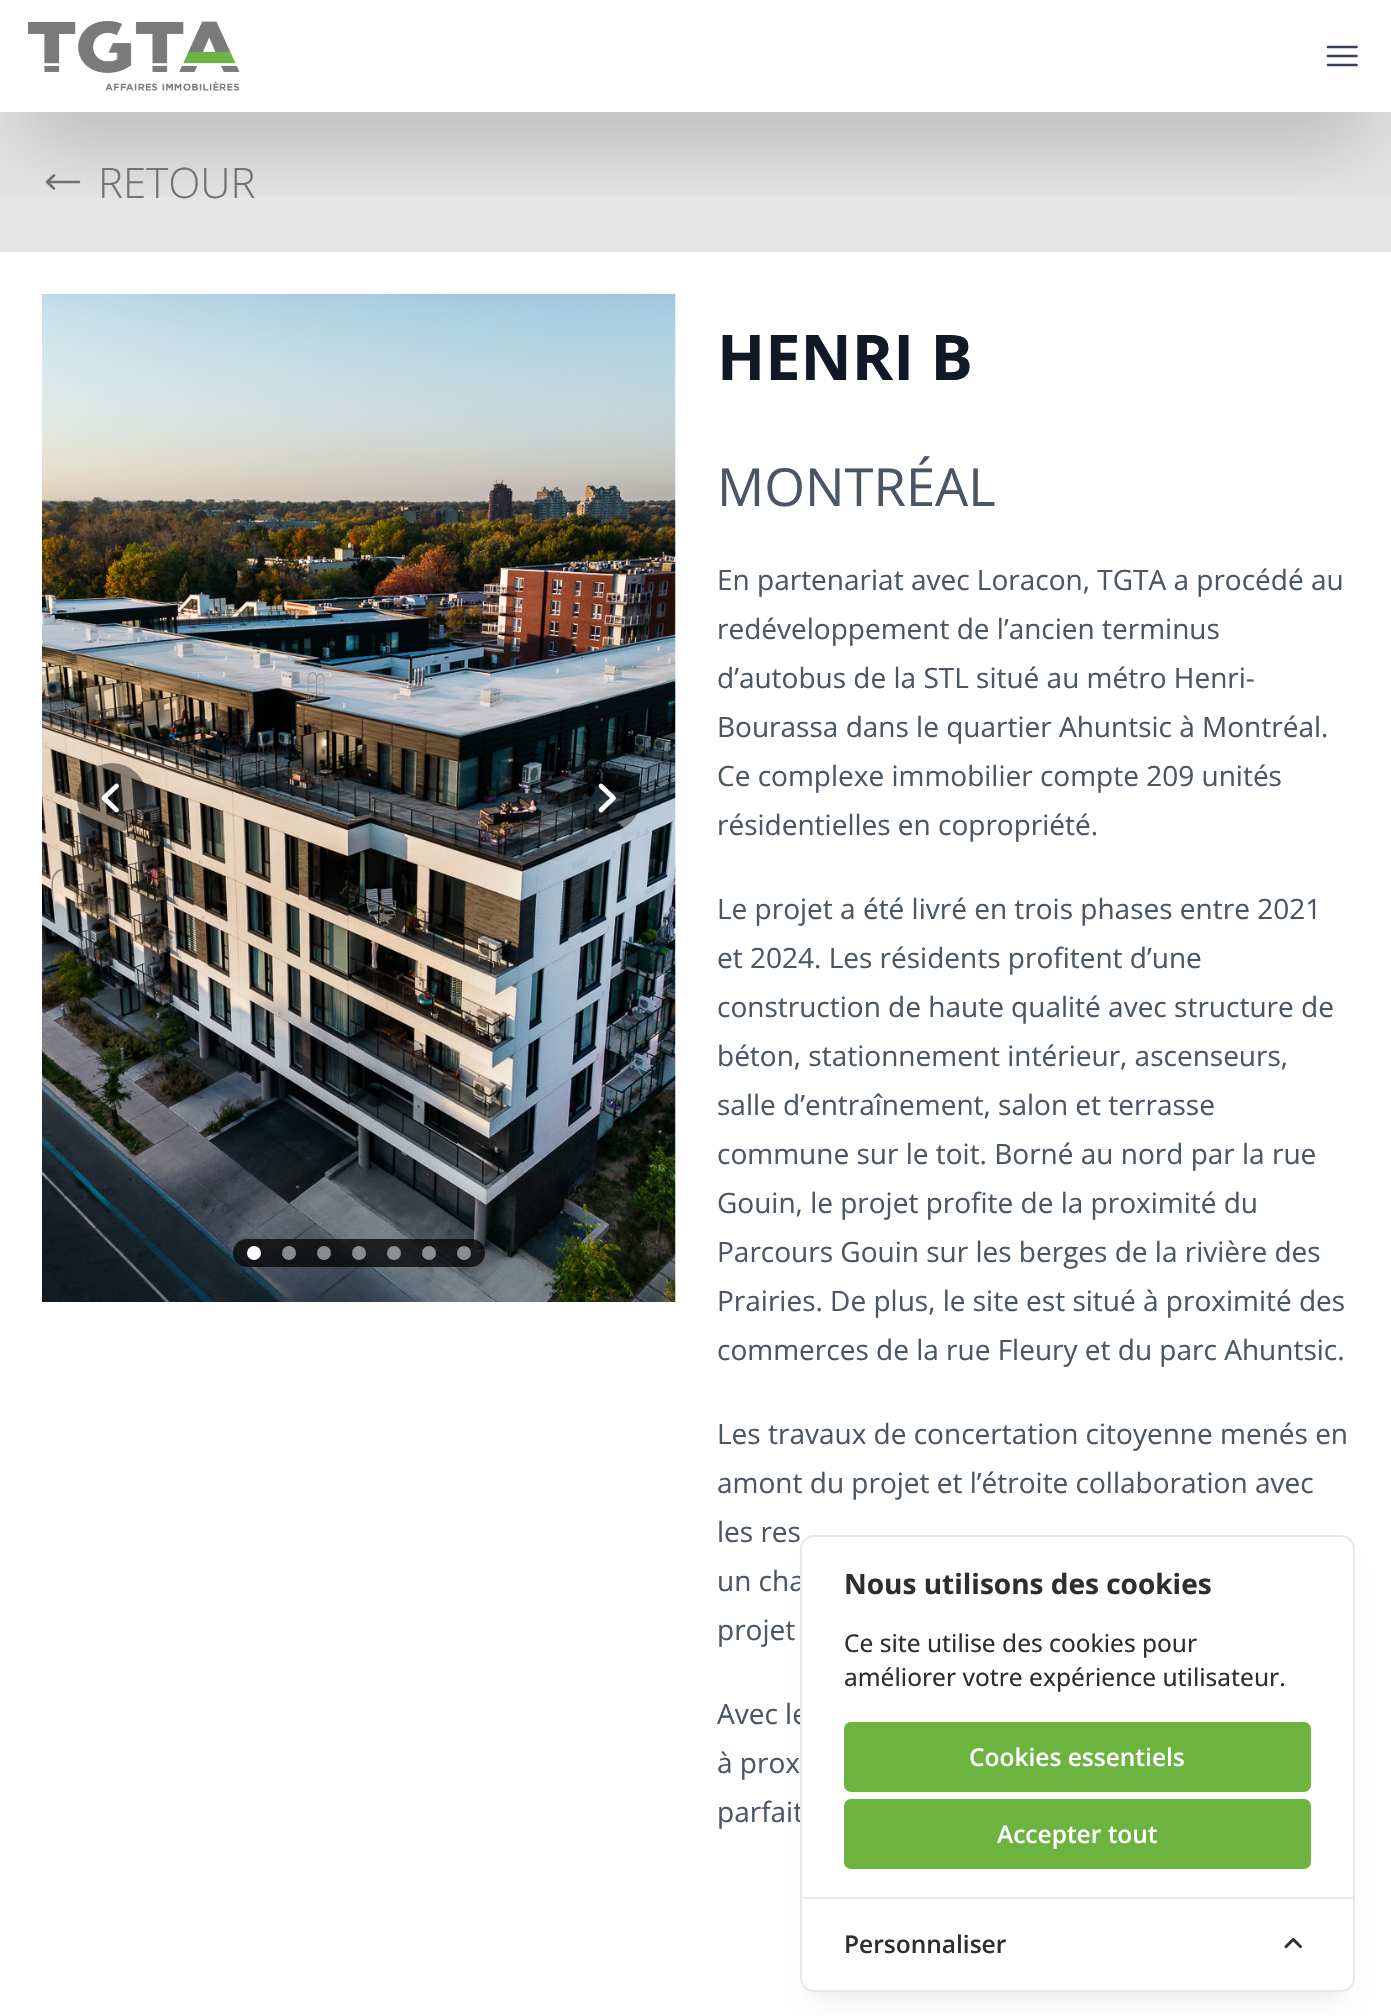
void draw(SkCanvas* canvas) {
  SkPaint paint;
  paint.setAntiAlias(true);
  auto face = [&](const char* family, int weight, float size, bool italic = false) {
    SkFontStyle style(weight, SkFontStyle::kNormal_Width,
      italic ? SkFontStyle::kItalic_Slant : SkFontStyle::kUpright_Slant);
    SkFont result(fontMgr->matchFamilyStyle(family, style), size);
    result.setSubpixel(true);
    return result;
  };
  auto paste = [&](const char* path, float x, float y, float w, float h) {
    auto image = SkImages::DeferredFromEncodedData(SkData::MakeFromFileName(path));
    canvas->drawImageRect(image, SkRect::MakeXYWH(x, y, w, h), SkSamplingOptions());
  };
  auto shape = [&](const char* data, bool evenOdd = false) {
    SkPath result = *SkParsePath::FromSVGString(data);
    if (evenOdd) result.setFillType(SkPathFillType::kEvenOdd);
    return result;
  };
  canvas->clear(0xffffffff);
  paint.setColor(0xffe5e5e5);
  canvas->drawRect(SkRect::MakeXYWH(0, 112, 1391, 140), paint);
  paint.setStroke(true);
  paint.setStrokeWidth(2.6f);
  paint.setStrokeCap(SkPaint::kRound_Cap);
  paint.setStrokeJoin(SkPaint::kRound_Join);
  paint.setColor(0xff737373);
  canvas->drawPath(shape("M54 188.5L47 182M47 182L54 175.5M47 182H79"), paint);
  canvas->save();
  canvas->clipRect(SkRect::MakeXYWH(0, 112, 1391, 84));
  paint.setStroke(false);
  paint.setColor(0x40000000);
  paint.setMaskFilter(SkMaskFilter::MakeBlur(kNormal_SkBlurStyle, 44));
  canvas->drawRect(SkRect::MakeXYWH(21, 65, 1349, 70), paint);
  paint.setMaskFilter(nullptr);
  canvas->restore();
  paste("img/1.png", 28, 21, 212, 70);
  paint.setStroke(true);
  paint.setColor(0xff374151);
  canvas->drawPath(shape("M1328 47H1356.5M1328 56H1356.5M1328 65H1356.5"), paint);
  paste("img/2.png", 42, 294, 634, 1008);
  paint.setStroke(false);
  paint.setColor(0x66000000);
  canvas->drawCircle(112, 798, 35, paint);
  paint.setStroke(true);
  paint.setStrokeWidth(4.8f);
  paint.setColor(0xffffffff);
  canvas->drawPath(shape("M116.5 810L104 798L116.5 786"), paint);
  paint.setStroke(false);
  paint.setColor(0x66000000);
  canvas->drawCircle(606, 798, 35, paint);
  paint.setStroke(true);
  paint.setColor(0xffffffff);
  canvas->drawPath(shape("M601 786L613.5 798L601 810"), paint);
  paint.setStroke(false);
  paint.setColor(0xbf000000);
  canvas->drawRoundRect(SkRect::MakeXYWH(233, 1239, 252, 28), 14, 14, paint);
  paint.setColor(0xffffffff);
  canvas->drawCircle(254, 1253, 7, paint);
  paint.setColor(0x80ffffff);
  canvas->drawCircle(289, 1253, 7, paint);
  canvas->drawCircle(324, 1253, 7, paint);
  canvas->drawCircle(359, 1253, 7, paint);
  canvas->drawCircle(394, 1253, 7, paint);
  canvas->drawCircle(429, 1253, 7, paint);
  canvas->drawCircle(464, 1253, 7, paint);
  paint.setColor(0x14000000);
  paint.setMaskFilter(SkMaskFilter::MakeBlur(kNormal_SkBlurStyle, 10.5f));
  canvas->drawRect(SkRect::MakeXYWH(814, 1570, 527, 429), paint);
  paint.setMaskFilter(nullptr);
  auto f0 = face("Open Sans", 300, 42);
  paint.setColor(0xff737373);
  canvas->drawString("RETOUR", 98, 198, f0, paint);
  auto f1 = face("Open Sans", 700, 63);
  paint.setColor(0xff111827);
  canvas->drawString("HENRI B", 717, 380, f1, paint);
  auto f2 = face("Open Sans", 400, 52.5f);
  paint.setColor(0xff4b5563);
  canvas->drawString("MONTRÉAL", 717, 506, f2, paint);
  auto f3 = face("Open Sans", 400, 28);
  {
    const struct { const char* s; float x, y; } items[] = {
      {"En partenariat avec Loracon, TGTA a procédé au", 717, 590},
      {"redéveloppement de l’ancien terminus", 717, 639},
      {"d’autobus de la STL situé au métro Henri-", 717, 688},
      {"Bourassa dans le quartier Ahuntsic à Montréal.", 717, 737},
      {"Ce complexe immobilier compte 209 unités", 717, 786},
      {"résidentielles en copropriété.", 717, 835},
      {"Le projet a été livré en trois phases entre 2021", 717, 919},
      {"et 2024. Les résidents profitent d’une", 717, 968},
      {"construction de haute qualité avec structure de", 717, 1017},
      {"béton, stationnement intérieur, ascenseurs,", 717, 1066},
      {"salle d’entraînement, salon et terrasse", 717, 1115},
      {"commune sur le toit. Borné au nord par la rue", 717, 1164},
      {"Gouin, le projet profite de la proximité du", 717, 1213},
      {"Parcours Gouin sur les berges de la rivière des", 717, 1262},
      {"Prairies. De plus, le site est situé à proximité des", 717, 1311},
      {"commerces de la rue Fleury et du parc Ahuntsic.", 717, 1360},
      {"Les travaux de concertation citoyenne menés en", 717, 1444},
      {"amont du projet et l’étroite collaboration avec", 717, 1493},
      {"les res", 717, 1542},
      {"un cha", 717, 1591},
      {"projet", 717, 1640},
      {"Avec le", 717, 1724},
      {"à prox", 717, 1773},
      {"parfait", 717, 1822},
    };
    for (auto [s, x, y] : items) {
      canvas->drawString(s, x, y, f3, paint);
    }
  }
  paint.setColor(0xffffffff);
  canvas->drawRoundRect(SkRect::MakeXYWH(801, 1536, 553, 455), 13, 13, paint);
  paint.setStroke(true);
  paint.setStrokeWidth(2);
  paint.setStrokeCap(SkPaint::kButt_Cap);
  paint.setStrokeJoin(SkPaint::kMiter_Join);
  paint.setColor(0xffe7e8e9);
  canvas->drawRoundRect(SkRect::MakeXYWH(801, 1536, 553, 455), 13, 13, paint);
  auto f4 = face("Open Sans", 700, 28);
  paint.setStroke(false);
  paint.setColor(0xff2c2e30);
  canvas->drawString("Nous utilisons des cookies", 844, 1594, f4, paint);
  auto f5 = face("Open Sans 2", 400, 24.5f);
  canvas->drawString("Ce site utilise des cookies pour", 844, 1652, f5, paint);
  canvas->drawString("améliorer votre expérience utilisateur.", 844, 1686, f5, paint);
  paint.setColor(0xff6cb33f);
  canvas->drawRoundRect(SkRect::MakeXYWH(845, 1723, 465, 68), 6, 6, paint);
  paint.setStroke(true);
  canvas->drawRoundRect(SkRect::MakeXYWH(845, 1723, 465, 68), 6, 6, paint);
  auto f6 = face("Open Sans", 600, 24.5f);
  paint.setStroke(false);
  paint.setColor(0xffffffff);
  canvas->drawString("Cookies essentiels", 969, 1766, f6, paint);
  paint.setColor(0xff6cb33f);
  canvas->drawRoundRect(SkRect::MakeXYWH(845, 1800, 465, 68), 6, 6, paint);
  paint.setStroke(true);
  canvas->drawRoundRect(SkRect::MakeXYWH(845, 1800, 465, 68), 6, 6, paint);
  paint.setStroke(false);
  paint.setColor(0xffffffff);
  canvas->drawString("Accepter tout", 997, 1843, f6, paint);
  paint.setColor(0xffe7e8e9);
  canvas->drawRect(SkRect::MakeXYWH(802, 1897, 551, 2), paint);
  paint.setColor(0xff2c2e30);
  canvas->drawString("Personnaliser", 844, 1953, f6, paint);
  paste("img/3.png", 1284, 1937, 18, 12);
}
